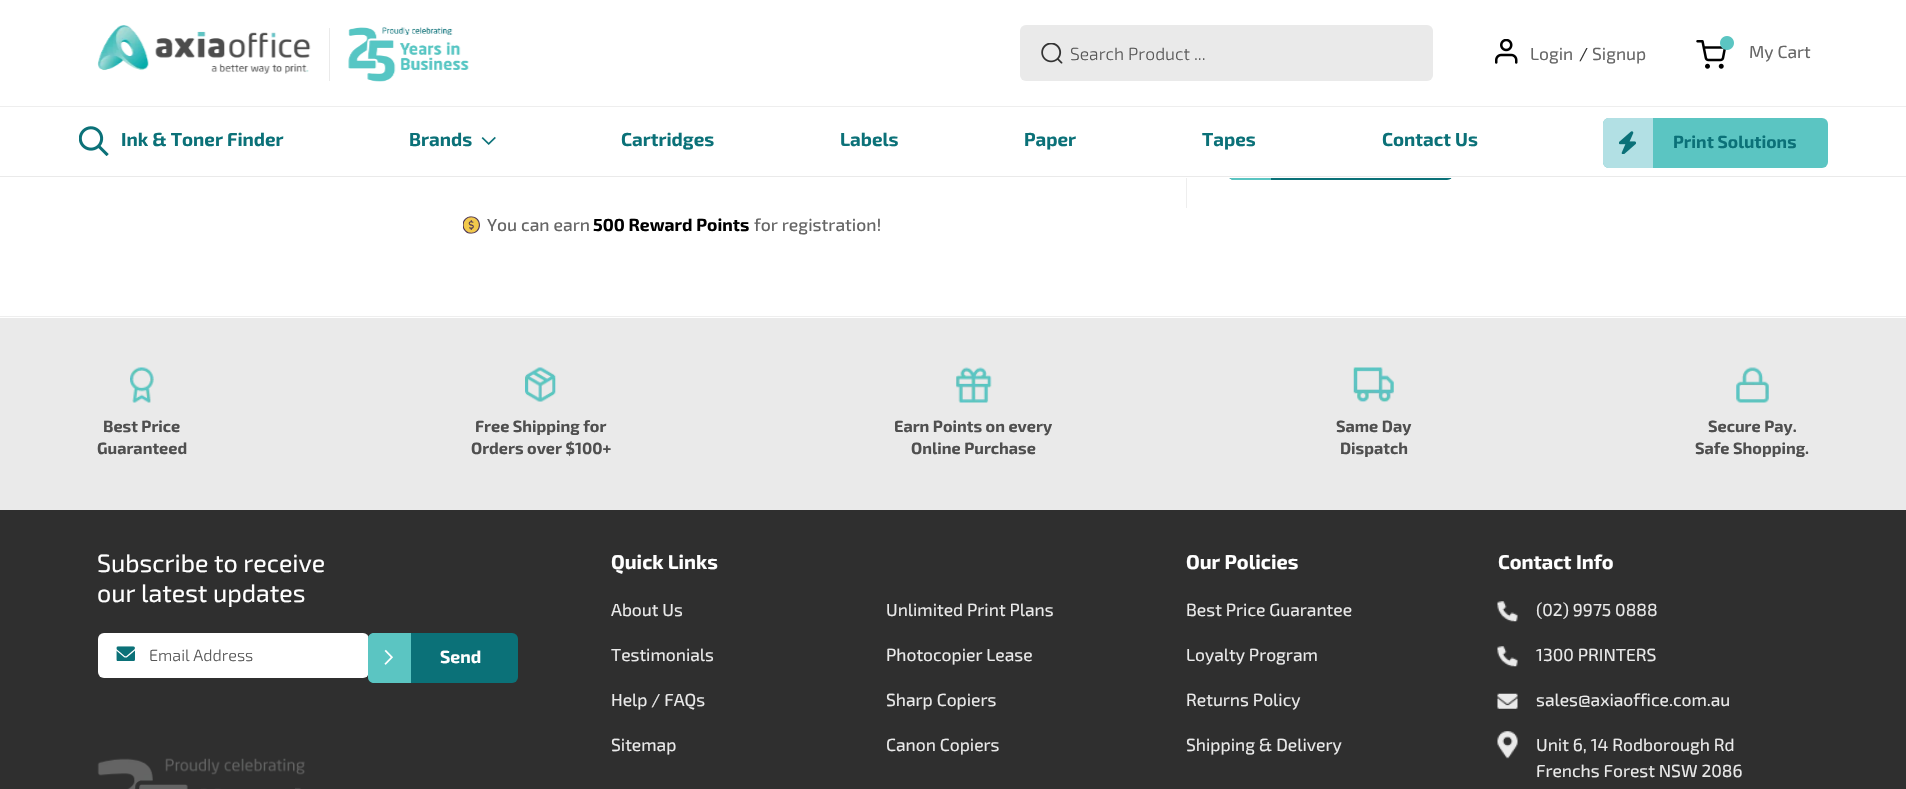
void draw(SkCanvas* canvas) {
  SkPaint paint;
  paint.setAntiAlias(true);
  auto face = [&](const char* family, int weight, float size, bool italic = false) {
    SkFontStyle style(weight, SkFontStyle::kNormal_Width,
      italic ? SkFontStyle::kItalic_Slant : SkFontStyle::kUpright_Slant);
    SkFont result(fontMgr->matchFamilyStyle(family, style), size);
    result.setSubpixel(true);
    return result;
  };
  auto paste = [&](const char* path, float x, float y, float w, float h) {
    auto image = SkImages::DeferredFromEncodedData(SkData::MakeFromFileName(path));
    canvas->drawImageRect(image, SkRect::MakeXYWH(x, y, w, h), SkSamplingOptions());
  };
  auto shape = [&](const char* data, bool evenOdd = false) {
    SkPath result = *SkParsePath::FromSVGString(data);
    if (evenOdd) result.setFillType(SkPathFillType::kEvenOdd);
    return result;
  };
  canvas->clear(0xffffffff);
  paint.setColor(0xffeeeeee);
  canvas->drawRect(SkRect::MakeXYWH(0, 106, 1906, 1), paint);
  paste("img/1.png", 97, 25, 214, 49);
  paint.setColor(0xffeaeaea);
  canvas->drawRect(SkRect::MakeXYWH(329, 28, 1, 53), paint);
  paste("img/2.png", 348, 27, 121, 55);
  canvas->drawRoundRect(SkRect::MakeXYWH(1020, 25, 413, 56), 6, 6, paint);
  paste("img/3.png", 1041, 43, 22, 21);
  paste("img/4.png", 1495, 39, 23, 25);
  paste("img/5.png", 1696, 36, 38, 33);
  paint.setColor(0xff0b7178);
  canvas->drawRoundRect(SkRect::MakeXYWH(1228, 130, 225, 50), 6, 6, paint);
  paint.setColor(0xff5bc5c2);
  canvas->drawPath(shape("M1234 130H1271V180H1234C1230.5 180 1228 177.5 1228 174V136C1228 132.5 1230.5 130 1234 130Z"), paint);
  paint.setColor(0xffffffff);
  canvas->drawRect(SkRect::MakeXYWH(1228, 130, 225, 48), paint);
  paint.setColor(0xffeaeaea);
  canvas->drawRect(SkRect::MakeXYWH(0, 176, 1906, 1), paint);
  paste("img/6.png", 79, 126, 30, 30);
  paste("img/7.png", 481, 136, 15, 9);
  paint.setColor(0xff5bc5c2);
  canvas->drawRoundRect(SkRect::MakeXYWH(1603, 118, 225, 50), 6, 6, paint);
  paint.setColor(0xffb2e0e4);
  canvas->drawPath(shape("M1609 118H1653V168H1609C1605.5 168 1603 165.5 1603 162V124C1603 120.5 1605.5 118 1609 118Z"), paint);
  paste("img/8.png", 1619, 131, 17, 23);
  paint.setColor(0xffeeeeee);
  canvas->drawRect(SkRect::MakeXYWH(1186, 178, 1, 30), paint);
  paste("img/9.png", 463, 216, 17, 18);
  canvas->drawRect(SkRect::MakeXYWH(0, 316, 1906, 1), paint);
  paint.setColor(0xffeaeaea);
  canvas->drawRect(SkRect::MakeXYWH(0, 318, 1906, 192), paint);
  paste("img/10.png", 130, 367, 24, 36);
  paste("img/11.png", 525, 367, 31, 35);
  paste("img/12.png", 956, 367, 36, 36);
  paste("img/13.png", 1353, 367, 41, 36);
  paste("img/14.png", 1736, 367, 33, 36);
  paint.setColor(0xff2f2f2f);
  canvas->drawRect(SkRect::MakeXYWH(0, 510, 1906, 279), paint);
  paint.setColor(0xffffffff);
  canvas->drawRoundRect(SkRect::MakeXYWH(98, 633, 271, 45), 6, 6, paint);
  paste("img/15.png", 116, 646, 19, 15);
  paint.setColor(0xff0b7178);
  canvas->drawRoundRect(SkRect::MakeXYWH(368, 633, 150, 50), 6, 6, paint);
  paint.setColor(0xff5bc5c2);
  canvas->drawPath(shape("M374 633H411V683H374C370.5 683 368 680.5 368 677V639C368 635.5 370.5 633 374 633Z"), paint);
  paste("img/16.png", 384, 649, 9, 16);
  paste("img/17.png", 97, 758, 208, 31);
  paste("img/18.png", 1497, 601, 21, 21);
  paste("img/18.png", 1497, 646, 21, 21);
  paste("img/19.png", 1497, 693, 21, 16);
  paste("img/20.png", 1497, 731, 21, 28);
  auto f0 = face("Exo 2", 300, 17.5f);
  paint.setColor(0xff575757);
  canvas->drawString("Search Product ...", 1070, 60, f0, paint);
  auto f1 = face("Exo 2", 400, 17.5f);
  paint.setColor(0xff666666);
  canvas->drawString("Login", 1530, 60, f1, paint);
  paint.setColor(0xff333333);
  canvas->drawString("/", 1579, 60, f1, paint);
  paint.setColor(0xff666666);
  canvas->drawString("Signup", 1592, 60, f1, paint);
  canvas->drawString("My Cart", 1749, 58, f1, paint);
  auto f2 = face("Exo 2", 700, 18.75f);
  paint.setColor(0xff0b7178);
  {
    const struct { const char* s; float x, y; } items[] = {
      {"Ink & Toner Finder", 121, 146},
      {"Brands", 409, 146},
      {"Cartridges", 621, 146},
      {"Labels", 840, 146},
      {"Paper", 1024, 146},
      {"Tapes", 1202, 146},
      {"Contact Us", 1382, 146},
    };
    for (auto [s, x, y] : items) {
      canvas->drawString(s, x, y, f2, paint);
    }
  }
  auto f3 = face("Exo 2", 700, 17.5f);
  canvas->drawString("Print Solutions", 1673, 148, f3, paint);
  auto f4 = face("Exo 2", 500, 17.5f);
  paint.setColor(0xff666666);
  canvas->drawString("You can earn", 487, 231, f4, paint);
  paint.setColor(0xff000000);
  canvas->drawString("500 Reward Points", 593, 231, f3, paint);
  paint.setColor(0xff666666);
  canvas->drawString("for registration!", 754, 231, f4, paint);
  auto f5 = face("Exo 2", 700, 16.25f);
  paint.setColor(0xff4f4f4f);
  {
    const struct { const char* s; float x, y; } items[] = {
      {"Best Price", 103, 432},
      {"Guaranteed", 97, 454},
      {"Free Shipping for", 475, 432},
      {"Orders over $100+", 471, 454},
      {"Earn Points on every", 894, 432},
      {"Online Purchase", 911, 454},
      {"Same Day", 1336, 432},
      {"Dispatch", 1340, 454},
      {"Secure Pay.", 1708, 432},
      {"Safe Shopping.", 1695, 454},
    };
    for (auto [s, x, y] : items) {
      canvas->drawString(s, x, y, f5, paint);
    }
  }
  auto f6 = face("Exo 2", 400, 25);
  paint.setColor(0xffffffff);
  canvas->drawString("Subscribe to receive", 97, 572, f6, paint);
  canvas->drawString("our latest updates", 97, 602, f6, paint);
  auto f7 = face("Exo 2", 300, 16.25f);
  paint.setColor(0xff575757);
  canvas->drawString("Email Address", 149, 661, f7, paint);
  paint.setColor(0xffffffff);
  canvas->drawString("Send", 440, 663, f3, paint);
  auto f8 = face("Exo 2", 700, 20);
  canvas->drawString("Quick Links", 611, 569, f8, paint);
  paint.setColor(0xffeaeaea);
  {
    const struct { const char* s; float x, y; } items[] = {
      {"About Us", 611, 616},
      {"Testimonials", 611, 661},
      {"Help / FAQs", 611, 706},
      {"Sitemap", 611, 751},
      {"Unlimited Print Plans", 886, 616},
      {"Photocopier Lease", 886, 661},
      {"Sharp Copiers", 886, 706},
      {"Canon Copiers", 886, 751},
    };
    for (auto [s, x, y] : items) {
      canvas->drawString(s, x, y, f1, paint);
    }
  }
  paint.setColor(0xffffffff);
  canvas->drawString("Our Policies", 1186, 569, f8, paint);
  paint.setColor(0xffeaeaea);
  {
    const struct { const char* s; float x, y; } items[] = {
      {"Best Price Guarantee", 1186, 616},
      {"Loyalty Program", 1186, 661},
      {"Returns Policy", 1186, 706},
      {"Shipping & Delivery", 1186, 751},
    };
    for (auto [s, x, y] : items) {
      canvas->drawString(s, x, y, f1, paint);
    }
  }
  paint.setColor(0xffffffff);
  canvas->drawString("Contact Info", 1498, 569, f8, paint);
  paint.setColor(0xffeaeaea);
  {
    const struct { const char* s; float x, y; } items[] = {
      {"(02) 9975 0888", 1536, 616},
      {"1300 PRINTERS", 1536, 661},
      {"sales@axiaoffice.com.au", 1536, 706},
      {"Unit 6, 14 Rodborough Rd", 1536, 751},
      {"Frenchs Forest NSW 2086", 1536, 777},
    };
    for (auto [s, x, y] : items) {
      canvas->drawString(s, x, y, f1, paint);
    }
  }
}
